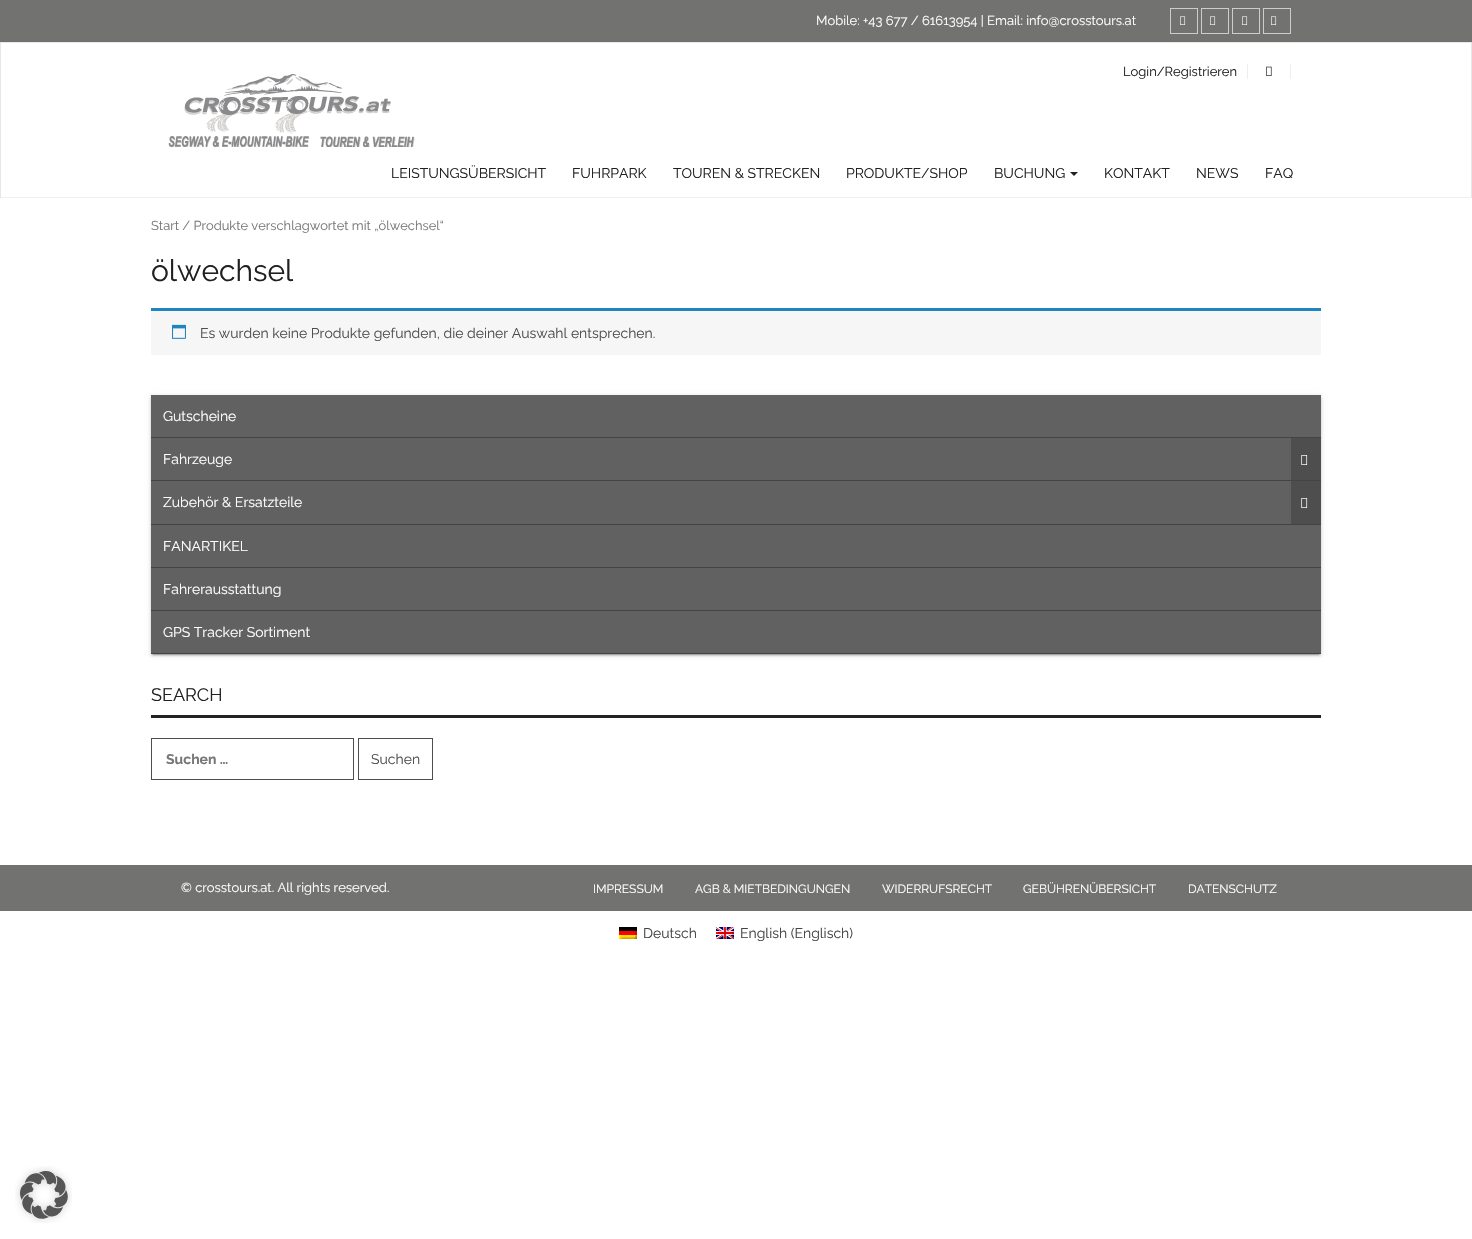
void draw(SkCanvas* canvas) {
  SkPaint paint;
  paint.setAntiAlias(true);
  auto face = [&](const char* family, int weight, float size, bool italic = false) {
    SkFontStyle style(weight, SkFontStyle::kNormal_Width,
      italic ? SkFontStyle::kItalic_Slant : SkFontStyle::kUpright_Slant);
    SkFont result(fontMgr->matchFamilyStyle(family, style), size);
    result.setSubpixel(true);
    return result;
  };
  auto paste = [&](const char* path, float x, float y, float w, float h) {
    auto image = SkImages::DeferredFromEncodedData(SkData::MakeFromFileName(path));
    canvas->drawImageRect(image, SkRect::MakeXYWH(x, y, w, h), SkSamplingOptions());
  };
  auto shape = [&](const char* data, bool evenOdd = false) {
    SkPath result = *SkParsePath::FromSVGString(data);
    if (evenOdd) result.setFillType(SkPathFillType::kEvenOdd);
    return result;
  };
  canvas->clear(0xffffffff);
  paint.setColor(0xff727271);
  canvas->drawRect(SkRect::MakeXYWH(0, 0, 1472, 42), paint);
  paint.setStroke(true);
  paint.setStrokeWidth(1);
  paint.setColor(0xffcdcdcd);
  canvas->drawRect(SkRect::MakeXYWH(1170.5f, 8.5f, 27, 25), paint);
  paste("img/1.png", 1180, 16, 6, 9);
  canvas->drawRect(SkRect::MakeXYWH(1201.5f, 8.5f, 27, 25), paint);
  paste("img/1.png", 1210, 16, 6, 9);
  canvas->drawRect(SkRect::MakeXYWH(1232.5f, 8.5f, 27, 25), paint);
  paste("img/1.png", 1242, 16, 6, 9);
  canvas->drawRect(SkRect::MakeXYWH(1263.5f, 8.5f, 27, 25), paint);
  paste("img/1.png", 1271, 16, 6, 9);
  paint.setStroke(false);
  {
    const struct { float x, y, w, h; SkColor color; } items[] = {
      {0, 42, 1472, 1, 0xffe7e7e7},
      {1471, 42, 1, 156, 0xffe7e7e7},
      {0, 197, 1472, 1, 0xffefefef},
      {0, 42, 1, 156, 0xffe7e7e7},
    };
    for (auto [x, y, w, h, color] : items) {
      paint.setColor(color);
      canvas->drawRect(SkRect::MakeXYWH(x, y, w, h), paint);
    }
  }
  paste("img/2.png", 168, 74, 247, 73);
  paint.setColor(0xffeeeeee);
  canvas->drawRect(SkRect::MakeXYWH(1247, 64, 1, 15), paint);
  canvas->drawRect(SkRect::MakeXYWH(1290, 64, 1, 15), paint);
  paste("img/3.png", 1266, 66, 6, 10);
  paint.setColor(0xff202020);
  canvas->drawPath(shape("M1070 172H1078L1074 176Z"), paint);
  paint.setColor(0xfff7f6f7);
  canvas->drawRect(SkRect::MakeXYWH(151, 311, 1170, 44), paint);
  paint.setColor(0xff1e85be);
  canvas->drawRect(SkRect::MakeXYWH(151, 308, 1170, 3), paint);
  paste("img/4.png", 172, 324, 14, 15);
  paint.setColor(0x1f000000);
  paint.setMaskFilter(SkMaskFilter::MakeBlur(kNormal_SkBlurStyle, 2.5f));
  canvas->drawRect(SkRect::MakeXYWH(151, 396, 1170, 259), paint);
  paint.setMaskFilter(nullptr);
  paint.setColor(0x33000000);
  paint.setMaskFilter(SkMaskFilter::MakeBlur(kNormal_SkBlurStyle, 0.5f));
  canvas->drawRect(SkRect::MakeXYWH(153, 400, 1166, 255), paint);
  paint.setMaskFilter(nullptr);
  paint.setColor(0x24000000);
  paint.setMaskFilter(SkMaskFilter::MakeBlur(kNormal_SkBlurStyle, 1));
  canvas->drawRect(SkRect::MakeXYWH(151, 397, 1170, 259), paint);
  paint.setMaskFilter(nullptr);
  {
    const struct { float x, y, w, h; SkColor color; } items[] = {
      {151, 395, 1170, 258, 0xff616161},
      {151, 437, 1170, 1, 0xff444444},
      {151, 480, 1170, 1, 0xff444444},
      {1291, 438, 30, 42, 0xff4e4e4e},
    };
    for (auto [x, y, w, h, color] : items) {
      paint.setColor(color);
      canvas->drawRect(SkRect::MakeXYWH(x, y, w, h), paint);
    }
  }
  paste("img/5.png", 1301, 455, 7, 10);
  paint.setColor(0xff444444);
  canvas->drawRect(SkRect::MakeXYWH(151, 524, 1170, 1), paint);
  paint.setColor(0xff4e4e4e);
  canvas->drawRect(SkRect::MakeXYWH(1291, 481, 30, 43), paint);
  paste("img/5.png", 1301, 498, 7, 10);
  {
    const struct { float x, y, w, h; SkColor color; } items[] = {
      {151, 567, 1170, 1, 0xff444444},
      {151, 610, 1170, 1, 0xff444444},
      {151, 653, 1170, 1, 0xff444444},
      {151, 715, 1170, 3, 0xff222222},
    };
    for (auto [x, y, w, h, color] : items) {
      paint.setColor(color);
      canvas->drawRect(SkRect::MakeXYWH(x, y, w, h), paint);
    }
  }
  paint.setStroke(true);
  paint.setColor(0xff4e4e4e);
  canvas->drawRect(SkRect::MakeXYWH(151.5f, 738.5f, 202, 41), paint);
  canvas->drawRect(SkRect::MakeXYWH(358.5f, 738.5f, 74, 41), paint);
  paint.setStroke(false);
  paint.setColor(0xff727271);
  canvas->drawRect(SkRect::MakeXYWH(0, 865, 1472, 46), paint);
  paste("img/6.png", 619, 927, 18, 12);
  paste("img/7.png", 716, 927, 18, 12);
  paste("img/8.png", 15, 1166, 57, 57);
  auto f0 = face("Raleway", 100, 13);
  paint.setColor(0xffffffff);
  canvas->drawString("Mobile: +43 677 / 61613954 | Email: info@crosstours.at", 816, 25, f0, paint);
  paint.setColor(0xff202020);
  canvas->drawString("Login/Registrieren", 1123, 76, f0, paint);
  auto f1 = face("Raleway", 100, 14);
  {
    const struct { const char* s; float x, y; } items[] = {
      {"LEISTUNGSÜBERSICHT", 391, 178},
      {"FUHRPARK", 572, 178},
      {"TOUREN & STRECKEN", 673, 178},
      {"PRODUKTE/SHOP", 846, 178},
      {"BUCHUNG", 994, 178},
      {"KONTAKT", 1104, 178},
      {"NEWS", 1196, 178},
      {"FAQ", 1265, 178},
    };
    for (auto [s, x, y] : items) {
      canvas->drawString(s, x, y, f1, paint);
    }
  }
  auto f2 = face("Raleway", 100, 12.9f);
  paint.setColor(0xff777777);
  canvas->drawString("Start / Produkte verschlagwortet mit „ölwechsel“", 151, 230, f2, paint);
  auto f3 = face("Raleway", 100, 30);
  paint.setColor(0xff202020);
  canvas->drawString("ölwechsel", 151, 281, f3, paint);
  paint.setColor(0xff4e4e4e);
  canvas->drawString("Es wurden keine Produkte gefunden, die deiner Auswahl entsprechen.", 200, 338, f1, paint);
  paint.setColor(0xffffffff);
  {
    const struct { const char* s; float x, y; } items[] = {
      {"Gutscheine", 163, 421},
      {"Fahrzeuge", 163, 464},
      {"Zubehör & Ersatzteile", 163, 507},
      {"FANARTIKEL", 163, 551},
      {"Fahrerausstattung", 163, 594},
      {"GPS Tracker Sortiment", 163, 637},
    };
    for (auto [s, x, y] : items) {
      canvas->drawString(s, x, y, f1, paint);
    }
  }
  auto f4 = face("Raleway", 100, 18);
  paint.setColor(0xff202020);
  canvas->drawString("SEARCH", 151, 701, f4, paint);
  auto f5 = face("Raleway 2", 100, 14);
  paint.setColor(0xff777777);
  canvas->drawString("Suchen …", 166, 764, f5, paint);
  paint.setColor(0xff4e4e4e);
  canvas->drawString("Suchen", 371, 764, f1, paint);
  paint.setColor(0xffffffff);
  canvas->drawString("© crosstours.at. All rights reserved.", 181, 892, f0, paint);
  auto f6 = face("Raleway", 100, 12);
  {
    const struct { const char* s; float x, y; } items[] = {
      {"IMPRESSUM", 593, 893},
      {"AGB & MIETBEDINGUNGEN", 695, 893},
      {"WIDERRUFSRECHT", 882, 893},
      {"GEBÜHRENÜBERSICHT", 1023, 893},
      {"DATENSCHUTZ", 1188, 893},
    };
    for (auto [s, x, y] : items) {
      canvas->drawString(s, x, y, f6, paint);
    }
  }
  paint.setColor(0xff444444);
  canvas->drawString("Deutsch", 643, 938, f1, paint);
  canvas->drawString("English (Englisch)", 740, 938, f1, paint);
}
